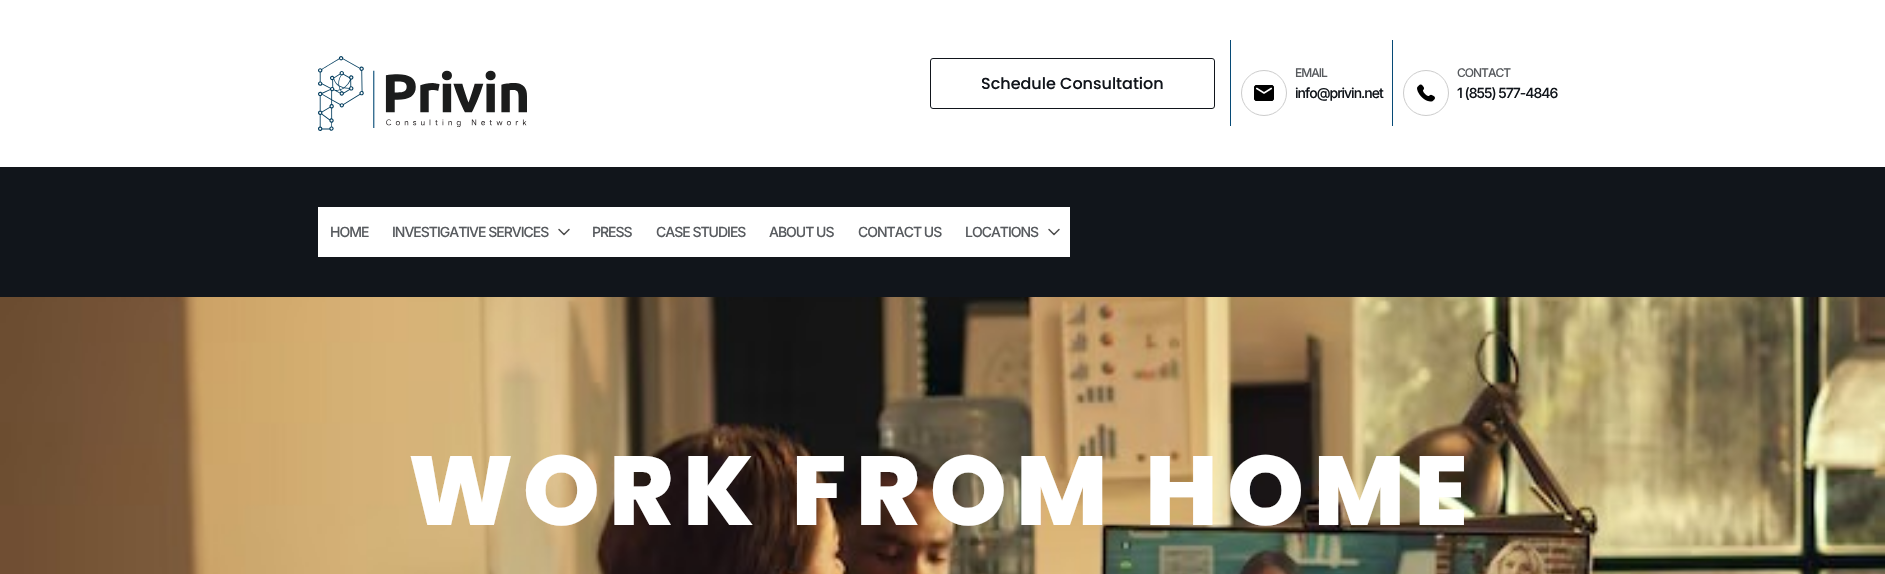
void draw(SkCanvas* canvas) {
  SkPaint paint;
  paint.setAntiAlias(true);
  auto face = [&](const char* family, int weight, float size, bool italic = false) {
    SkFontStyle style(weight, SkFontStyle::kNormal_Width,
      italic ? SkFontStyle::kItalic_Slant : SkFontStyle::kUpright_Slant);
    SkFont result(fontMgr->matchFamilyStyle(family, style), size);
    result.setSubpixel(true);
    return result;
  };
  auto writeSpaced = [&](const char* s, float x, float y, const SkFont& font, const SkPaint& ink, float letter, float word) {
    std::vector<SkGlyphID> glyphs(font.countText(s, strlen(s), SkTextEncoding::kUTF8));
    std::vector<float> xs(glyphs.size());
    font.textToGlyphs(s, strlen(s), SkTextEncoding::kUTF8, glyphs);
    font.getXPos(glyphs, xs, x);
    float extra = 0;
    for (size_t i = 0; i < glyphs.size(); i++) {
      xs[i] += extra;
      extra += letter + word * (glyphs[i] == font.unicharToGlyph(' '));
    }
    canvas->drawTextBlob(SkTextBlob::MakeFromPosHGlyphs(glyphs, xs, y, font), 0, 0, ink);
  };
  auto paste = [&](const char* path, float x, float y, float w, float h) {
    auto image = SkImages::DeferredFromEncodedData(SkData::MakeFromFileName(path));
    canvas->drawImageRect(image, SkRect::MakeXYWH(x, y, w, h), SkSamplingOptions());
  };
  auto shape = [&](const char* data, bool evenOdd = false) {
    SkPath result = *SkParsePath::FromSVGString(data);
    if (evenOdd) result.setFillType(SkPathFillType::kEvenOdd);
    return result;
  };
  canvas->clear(0xffffffff);
  paste("img/1.png", 318, 56, 209, 75);
  paint.setStroke(true);
  paint.setStrokeWidth(1);
  paint.setColor(0xff11151b);
  canvas->drawRoundRect(SkRect::MakeXYWH(930.5f, 58.5f, 284, 50), 2.5f, 2.5f, paint);
  paint.setStroke(false);
  paint.setColor(0xff064a76);
  canvas->drawRect(SkRect::MakeXYWH(1392, 40, 1, 86), paint);
  canvas->drawRect(SkRect::MakeXYWH(1230, 40, 1, 86), paint);
  paint.setStroke(true);
  paint.setColor(0xffcccccc);
  canvas->drawCircle(1264, 93, 22.5f, paint);
  paste("img/2.png", 1254, 85, 20, 16);
  canvas->drawCircle(1426, 93, 22.5f, paint);
  paste("img/3.png", 1417, 84, 18, 18);
  paint.setStroke(false);
  paint.setColor(0xff11151b);
  canvas->drawRect(SkRect::MakeXYWH(0, 167, 1885, 130), paint);
  paint.setColor(0xffffffff);
  canvas->drawRect(SkRect::MakeXYWH(318, 207, 752, 50), paint);
  paint.setStroke(true);
  paint.setStrokeWidth(1.5f);
  paint.setStrokeCap(SkPaint::kRound_Cap);
  paint.setStrokeJoin(SkPaint::kRound_Join);
  paint.setColor(0xff4d4d4d);
  canvas->drawPath(shape("M569 229.5L564 234.5L559 229.5"), paint);
  canvas->drawPath(shape("M1059 229.5L1054 234.5L1049 229.5"), paint);
  paste("img/4.png", 0, 297, 1885, 277);
  auto f0 = face("Poppins", 500, 16);
  paint.setStroke(false);
  paint.setColor(0xff11151b);
  canvas->drawString("Schedule Consultation", 981, 89, f0, paint);
  auto f1 = face("Inter", 500, 12);
  paint.setColor(0xff585b5f);
  writeSpaced("EMAIL", 1295, 77, f1, paint, -1, 0);
  auto f2 = face("Inter", 500, 14);
  paint.setColor(0xff11151b);
  writeSpaced("info@privin.net", 1295, 98, f2, paint, -1, 0);
  paint.setColor(0xff585b5f);
  writeSpaced("CONTACT", 1457, 77, f1, paint, -1, 0);
  paint.setColor(0xff11151b);
  writeSpaced("1 (855) 577-4846", 1457, 98, f2, paint, -1, 0);
  paint.setColor(0xff585b5f);
  {
    const struct { const char* s; float x, y; } items[] = {
      {"HOME", 330, 237},
      {"INVESTIGATIVE SERVICES", 392, 237},
      {"PRESS", 592, 237},
      {"CASE STUDIES", 656, 237},
      {"ABOUT US", 769, 237},
      {"CONTACT US", 858, 237},
      {"LOCATIONS", 965, 237},
    };
    for (auto [s, x, y] : items) {
      writeSpaced(s, x, y, f2, paint, -1, 0);
    }
  }
  auto f3 = face("Poppins", 800, 98);
  paint.setColor(0xffffffff);
  writeSpaced("WORK FROM HOME", 408, 525, f3, paint, 9.25f, 0);
}
